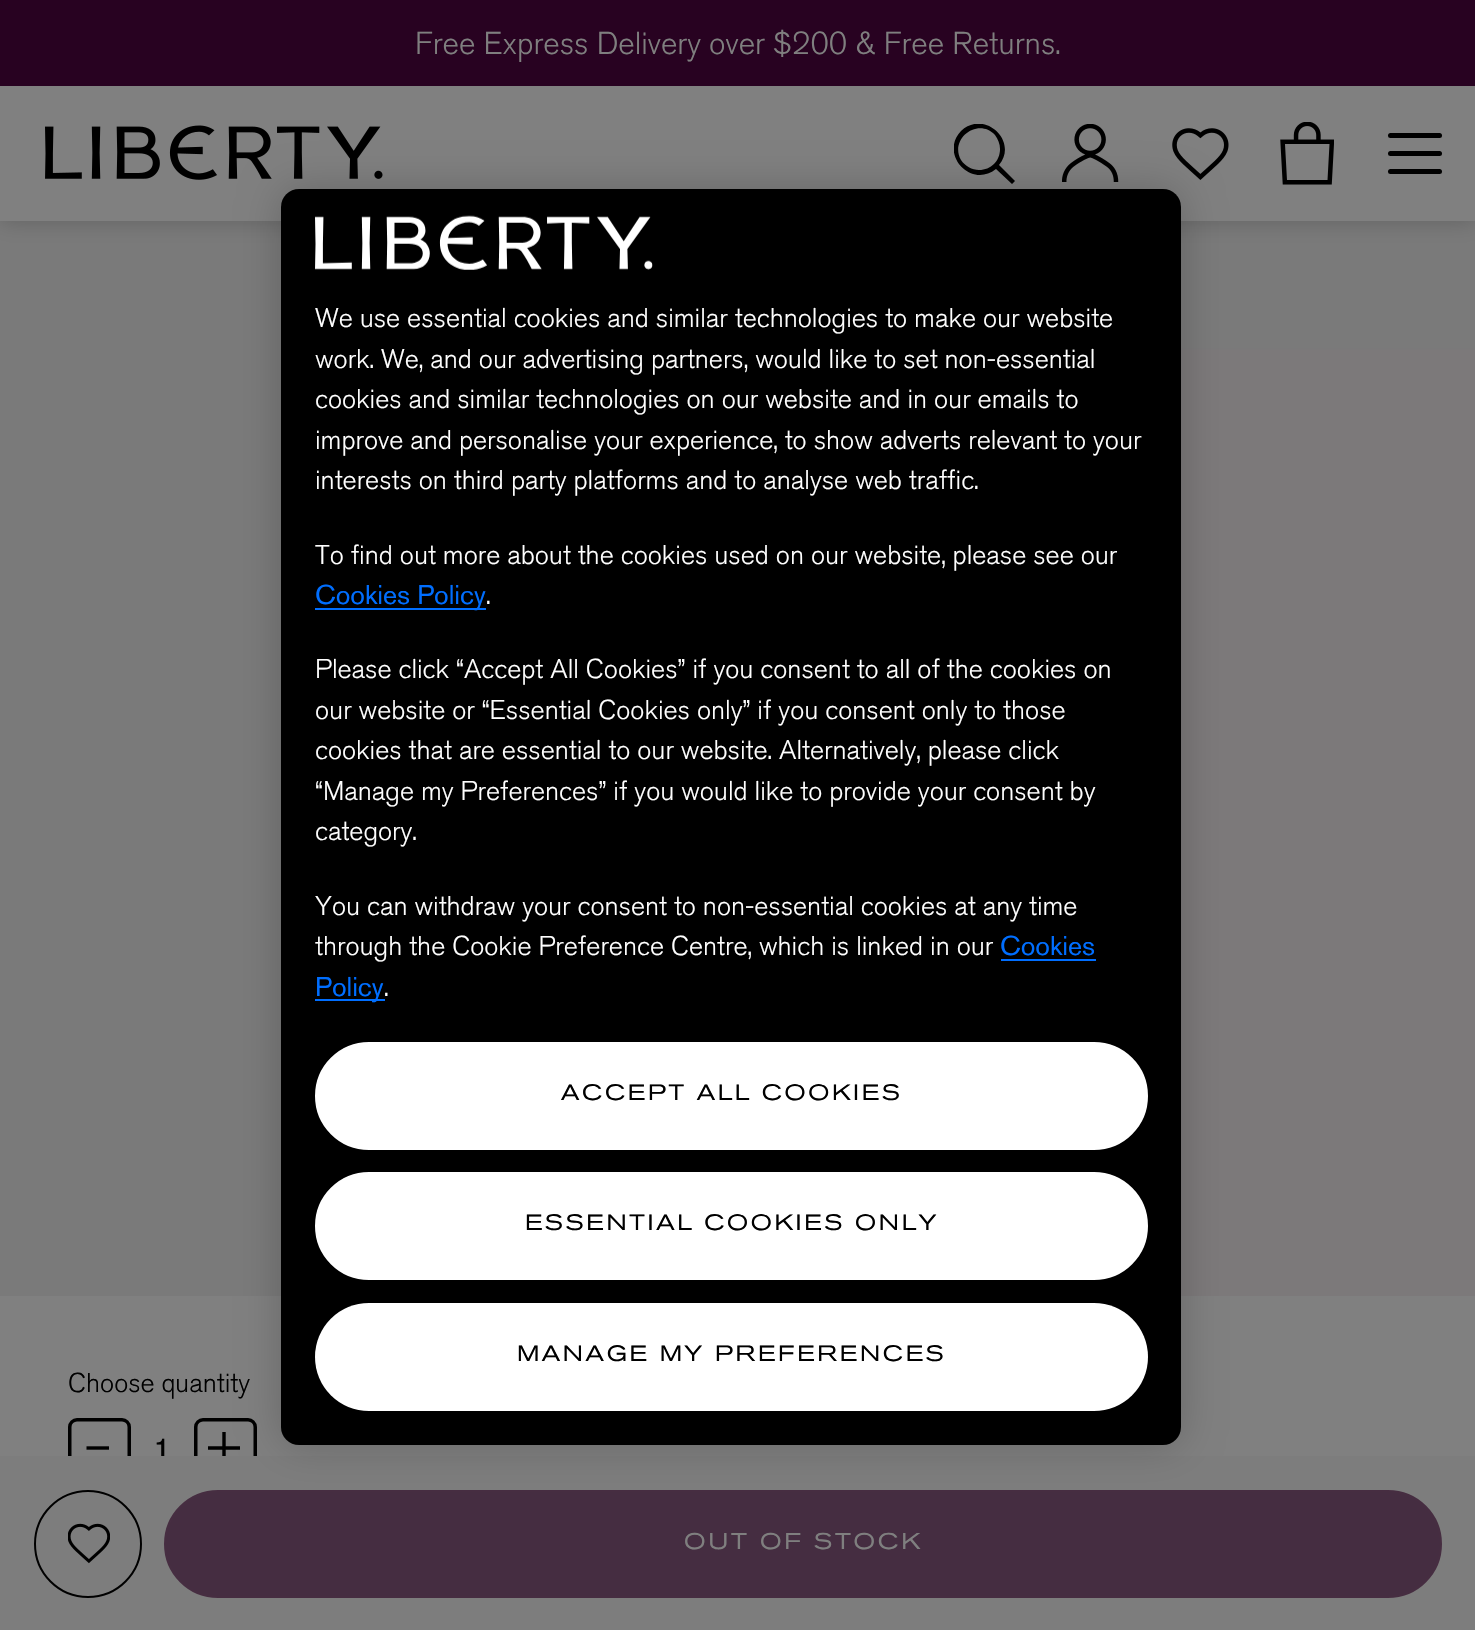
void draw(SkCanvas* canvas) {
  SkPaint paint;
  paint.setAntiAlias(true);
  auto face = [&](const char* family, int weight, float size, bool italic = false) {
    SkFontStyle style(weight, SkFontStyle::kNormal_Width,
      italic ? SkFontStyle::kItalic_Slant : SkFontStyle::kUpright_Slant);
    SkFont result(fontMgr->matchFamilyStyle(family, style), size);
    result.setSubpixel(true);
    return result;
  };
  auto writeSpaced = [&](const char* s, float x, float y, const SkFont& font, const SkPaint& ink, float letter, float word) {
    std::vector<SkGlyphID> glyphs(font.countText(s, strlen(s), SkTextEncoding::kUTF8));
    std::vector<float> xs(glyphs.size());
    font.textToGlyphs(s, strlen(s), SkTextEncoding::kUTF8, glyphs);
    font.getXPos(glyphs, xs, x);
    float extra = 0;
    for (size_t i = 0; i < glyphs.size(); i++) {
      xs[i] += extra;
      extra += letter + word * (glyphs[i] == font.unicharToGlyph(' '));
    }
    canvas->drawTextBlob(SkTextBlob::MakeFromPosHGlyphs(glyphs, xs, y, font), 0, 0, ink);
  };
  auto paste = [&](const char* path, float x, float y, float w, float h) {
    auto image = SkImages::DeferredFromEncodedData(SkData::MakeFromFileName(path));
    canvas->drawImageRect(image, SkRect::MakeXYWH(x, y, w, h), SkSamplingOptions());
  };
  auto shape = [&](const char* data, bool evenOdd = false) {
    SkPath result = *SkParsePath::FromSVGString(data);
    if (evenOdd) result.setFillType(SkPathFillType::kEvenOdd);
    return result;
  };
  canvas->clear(0xff808080);
  paste("img/5.png", 0, 221, 1475, 1075);
  paint.setColor(0x33000000);
  paint.setMaskFilter(SkMaskFilter::MakeBlur(kNormal_SkBlurStyle, 11));
  canvas->drawRect(SkRect::MakeXYWH(0, 0, 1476, 221), paint);
  paint.setMaskFilter(nullptr);
  paint.setColor(0xff808080);
  canvas->drawRect(SkRect::MakeXYWH(0, 86, 1475, 135), paint);
  paint.setColor(0xff280221);
  canvas->drawRect(SkRect::MakeXYWH(0, 0, 1475, 86), paint);
  paste("img/1.png", 45, 125, 338, 55);
  canvas->save();
  canvas->clipRect(SkRect::MakeXYWH(954, 124, 61, 61));
  paint.setColor(0xff000000);
  canvas->drawPath(shape("M999 165C1019 141 984 109 961 131C939 154 971 189 996 169L1012 184L1015 181ZM979 170C972 170 965 166 961 160C949 139 978 117 995 135C998 139 1000 144 1000 149C1000 161 991 170 979 170Z"), paint);
  canvas->restore();
  paste("img/2.png", 1062, 124, 57, 58);
  paste("img/3.png", 1172, 128, 57, 52);
  paste("img/4.png", 1280, 122, 54, 63);
  canvas->drawRoundRect(SkRect::MakeXYWH(1388, 151, 54, 5), 2.5f, 2.5f, paint);
  canvas->drawRoundRect(SkRect::MakeXYWH(1388, 133, 54, 5), 2.5f, 2.5f, paint);
  canvas->drawRoundRect(SkRect::MakeXYWH(1388, 169, 54, 5), 2.5f, 2.5f, paint);
  paint.setStroke(true);
  paint.setStrokeWidth(3.5f);
  canvas->drawRoundRect(SkRect::MakeXYWH(69.75f, 1419.75f, 59.5f, 59.5f), 7.25f, 7.25f, paint);
  paint.setStrokeWidth(3.4f);
  canvas->drawPath(shape("M86.5 1448H109"), paint);
  paint.setStrokeWidth(3.5f);
  canvas->drawRoundRect(SkRect::MakeXYWH(195.75f, 1419.75f, 59.5f, 59.5f), 7.25f, 7.25f, paint);
  paint.setStrokeWidth(3.4f);
  canvas->drawPath(shape("M224 1448V1464V1448H208H224V1432V1448H240Z"), paint);
  auto f0 = face("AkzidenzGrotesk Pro", 300, 31.5f);
  paint.setStroke(false);
  paint.setColor(0xff7f7f7f);
  canvas->drawString("Free Express Delivery over $200 & Free Returns.", 415, 54, f0, paint);
  auto f1 = face("AkzidenzGrotesk Pro", 300, 27);
  paint.setColor(0xff000000);
  canvas->drawString("Choose quantity", 68, 1392, f1, paint);
  auto f2 = face("AkzidenzGrotesk Pro", 400, 31.5f);
  canvas->drawString("1", 153, 1460, f2, paint);
  paint.setColor(0xff7d7d7d);
  canvas->drawRect(SkRect::MakeXYWH(0, 1456, 1475, 174), paint);
  paint.setStroke(true);
  paint.setStrokeWidth(2);
  paint.setColor(0xff000000);
  canvas->drawCircle(88, 1544, 53, paint);
  paste("img/6.png", 68, 1523, 42, 41);
  paint.setStroke(false);
  paint.setColor(0xff452d41);
  canvas->drawRoundRect(SkRect::MakeXYWH(165, 1491, 1276, 106), 53, 53, paint);
  paint.setStroke(true);
  paint.setColor(0xff462d41);
  canvas->drawRoundRect(SkRect::MakeXYWH(165, 1491, 1276, 106), 53, 53, paint);
  auto f3 = face("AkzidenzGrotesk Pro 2", 400, 22.5f);
  paint.setStroke(false);
  paint.setColor(0xff7f7f7f);
  writeSpaced("OUT OF STOCK", 684, 1549, f3, paint, 2.7f, 0);
  paint.setColor(0x33000000);
  paint.setMaskFilter(SkMaskFilter::MakeBlur(kNormal_SkBlurStyle, 20));
  canvas->drawRoundRect(SkRect::MakeXYWH(281, 189, 900, 1256), 18, 18, paint);
  paint.setMaskFilter(nullptr);
  paint.setColor(0xff000000);
  canvas->drawRoundRect(SkRect::MakeXYWH(281, 189, 900, 1256), 18, 18, paint);
  paste("img/7.png", 315, 215, 338, 55);
  paint.setColor(0xffffffff);
  {
    const struct { const char* s; float x, y; } items[] = {
      {"We use essential cookies and similar technologies to make our website", 315, 327},
      {"work. We, and our advertising partners, would like to set non-essential", 315, 368},
      {"cookies and similar technologies on our website and in our emails to", 315, 408},
      {"improve and personalise your experience, to show adverts relevant to your", 315, 449},
      {"interests on third party platforms and to analyse web traffic.", 315, 489},
      {"To find out more about the cookies used on our website, please see our", 315, 564},
    };
    for (auto [s, x, y] : items) {
      canvas->drawString(s, x, y, f1, paint);
    }
  }
  paint.setColor(0xff006eff);
  canvas->drawRect(SkRect::MakeXYWH(315, 608, 171, 2), paint);
  auto f4 = face("AkzidenzGrotesk Pro", 400, 27);
  canvas->drawString("Cookies Policy", 315, 604, f4, paint);
  paint.setColor(0xffffffff);
  {
    const struct { const char* s; float x, y; } items[] = {
      {".", 486, 604},
      {"Please click “Accept All Cookies” if you consent to all of the cookies on", 315, 678},
      {"our website or “Essential Cookies only” if you consent only to those", 315, 719},
      {"cookies that are essential to our website. Alternatively, please click", 315, 759},
      {"“Manage my Preferences” if you would like to provide your consent by", 315, 800},
      {"category.", 315, 840},
      {"You can withdraw your consent to non-essential cookies at any time", 315, 915},
      {"through the Cookie Preference Centre, which is linked in our", 315, 955},
    };
    for (auto [s, x, y] : items) {
      canvas->drawString(s, x, y, f1, paint);
    }
  }
  paint.setColor(0xff006eff);
  canvas->drawString("Cookies", 1000, 955, f4, paint);
  canvas->drawRect(SkRect::MakeXYWH(1001, 959, 95, 2), paint);
  canvas->drawRect(SkRect::MakeXYWH(315, 999, 70, 2), paint);
  canvas->drawString("Policy", 315, 996, f4, paint);
  paint.setColor(0xffffffff);
  canvas->drawString(".", 384, 996, f1, paint);
  canvas->drawRoundRect(SkRect::MakeXYWH(316, 1043, 831, 106), 53, 53, paint);
  paint.setStroke(true);
  canvas->drawRoundRect(SkRect::MakeXYWH(316, 1043, 831, 106), 53, 53, paint);
  auto f5 = face("AkzidenzGrotesk Pro 2", 400, 22);
  paint.setStroke(false);
  paint.setColor(0xff000000);
  writeSpaced("ACCEPT ALL COOKIES", 561, 1100, f5, paint, 2.7f, 0);
  paint.setColor(0xffffffff);
  canvas->drawRoundRect(SkRect::MakeXYWH(316, 1173, 831, 106), 53, 53, paint);
  paint.setStroke(true);
  canvas->drawRoundRect(SkRect::MakeXYWH(316, 1173, 831, 106), 53, 53, paint);
  paint.setStroke(false);
  paint.setColor(0xff000000);
  writeSpaced("ESSENTIAL COOKIES ONLY", 525, 1230, f5, paint, 2.7f, 0);
  paint.setColor(0xffffffff);
  canvas->drawRoundRect(SkRect::MakeXYWH(315, 1303, 833, 108), 54, 54, paint);
  paint.setColor(0xff000000);
  writeSpaced("MANAGE MY PREFERENCES", 517, 1361, f5, paint, 2.7f, 0);
}
